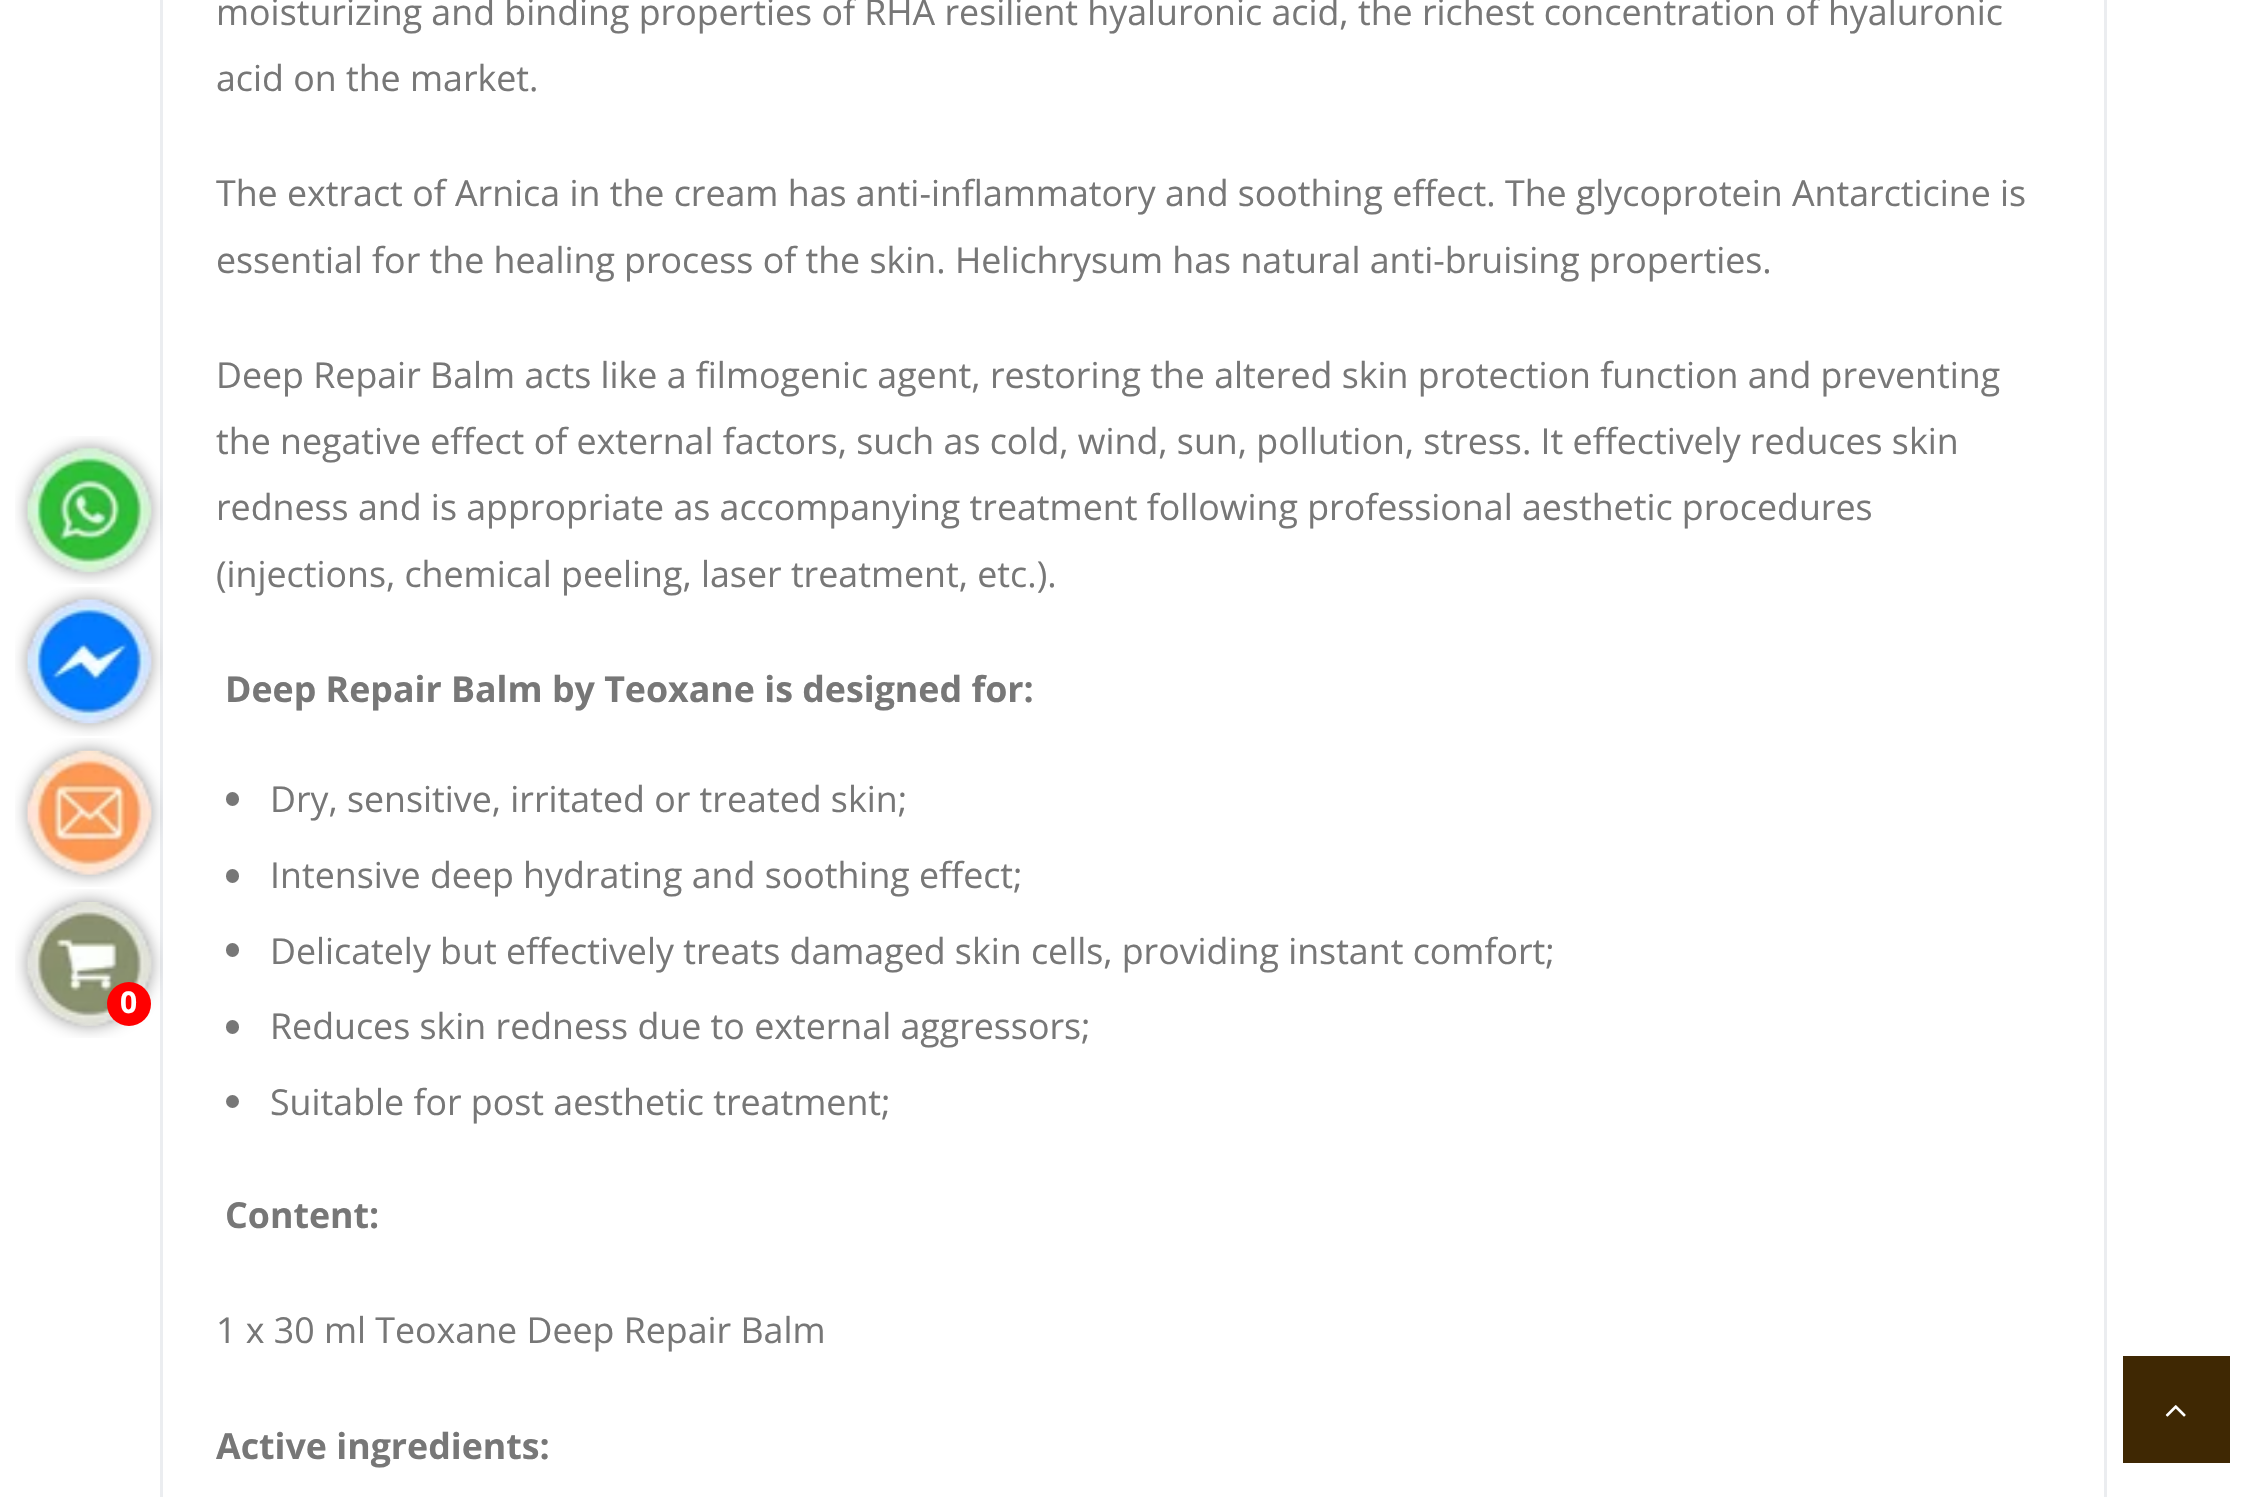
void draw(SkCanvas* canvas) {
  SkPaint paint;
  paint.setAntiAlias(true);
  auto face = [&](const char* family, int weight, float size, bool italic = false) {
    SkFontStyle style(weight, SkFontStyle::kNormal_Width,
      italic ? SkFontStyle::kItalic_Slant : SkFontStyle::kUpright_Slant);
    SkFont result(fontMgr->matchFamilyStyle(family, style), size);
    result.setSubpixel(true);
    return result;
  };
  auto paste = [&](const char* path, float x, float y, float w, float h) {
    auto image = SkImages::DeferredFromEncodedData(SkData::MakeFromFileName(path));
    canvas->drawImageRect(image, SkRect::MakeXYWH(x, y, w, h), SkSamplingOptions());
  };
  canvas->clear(0xffffffff);
  paint.setStroke(true);
  paint.setStrokeWidth(3);
  paint.setColor(0xffebedf0);
  canvas->drawRect(SkRect::MakeXYWH(161.5f, -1.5f, 1944, 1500), paint);
  paste("img/1.png", 15, 436, 148, 148);
  paste("img/2.png", 15, 587, 148, 149);
  paste("img/3.png", 15, 738, 148, 149);
  paste("img/4.png", 15, 889, 148, 149);
  paint.setStroke(false);
  paint.setColor(0xffff0000);
  canvas->drawCircle(129, 1004, 22, paint);
  paint.setColor(0xff777777);
  canvas->drawRoundRect(SkRect::MakeXYWH(226, 792, 13, 14), 6.5f, 6.5f, paint);
  canvas->drawRoundRect(SkRect::MakeXYWH(226, 869, 13, 14), 6.5f, 6.5f, paint);
  canvas->drawRoundRect(SkRect::MakeXYWH(226, 943, 13, 14), 6.5f, 6.5f, paint);
  canvas->drawRoundRect(SkRect::MakeXYWH(226, 1020, 13, 14), 6.5f, 6.5f, paint);
  canvas->drawCircle(232.5f, 1101.5f, 6.5f, paint);
  paint.setColor(0xff3f2803);
  canvas->drawRect(SkRect::MakeXYWH(2123, 1356, 107, 107), paint);
  paste("img/5.png", 2165, 1405, 21, 12);
  auto f0 = face("Open Sans", 700, 30);
  paint.setColor(0xffffffff);
  canvas->drawString("0", 120, 1013, f0, paint);
  auto f1 = face("Open Sans", 400, 35.75f);
  paint.setColor(0xff777777);
  {
    const struct { const char* s; float x, y; } items[] = {
      {"moisturizing and binding properties of RHA resilient hyaluronic acid, the richest concentration of hyaluronic", 216, 25},
      {"acid on the market.", 216, 91},
      {"The extract of Arnica in the cream has anti-inflammatory and soothing effect. The glycoprotein Antarcticine is", 216, 206},
      {"essential for the healing process of the skin. Helichrysum has natural anti-bruising properties.", 216, 273},
      {"Deep Repair Balm acts like a filmogenic agent, restoring the altered skin protection function and preventing", 216, 388},
      {"the negative effect of external factors, such as cold, wind, sun, pollution, stress. It effectively reduces skin", 216, 454},
      {"redness and is appropriate as accompanying treatment following professional aesthetic procedures", 216, 520},
      {"(injections, chemical peeling, laser treatment, etc.).", 216, 587},
    };
    for (auto [s, x, y] : items) {
      canvas->drawString(s, x, y, f1, paint);
    }
  }
  auto f2 = face("Open Sans", 700, 35.75f);
  canvas->drawString("Deep Repair Balm by Teoxane is designed for:", 225, 702, f2, paint);
  {
    const struct { const char* s; float x, y; } items[] = {
      {"Dry, sensitive, irritated or treated skin;", 270, 812},
      {"Intensive deep hydrating and soothing effect;", 270, 888},
      {"Delicately but effectively treats damaged skin cells, providing instant comfort;", 270, 964},
      {"Reduces skin redness due to external aggressors;", 270, 1039},
      {"Suitable for post aesthetic treatment;", 270, 1115},
    };
    for (auto [s, x, y] : items) {
      canvas->drawString(s, x, y, f1, paint);
    }
  }
  canvas->drawString("Content:", 225, 1228, f2, paint);
  canvas->drawString("1 x 30 ml Teoxane Deep Repair Balm", 216, 1343, f1, paint);
  canvas->drawString("Active ingredients:", 216, 1459, f2, paint);
}
